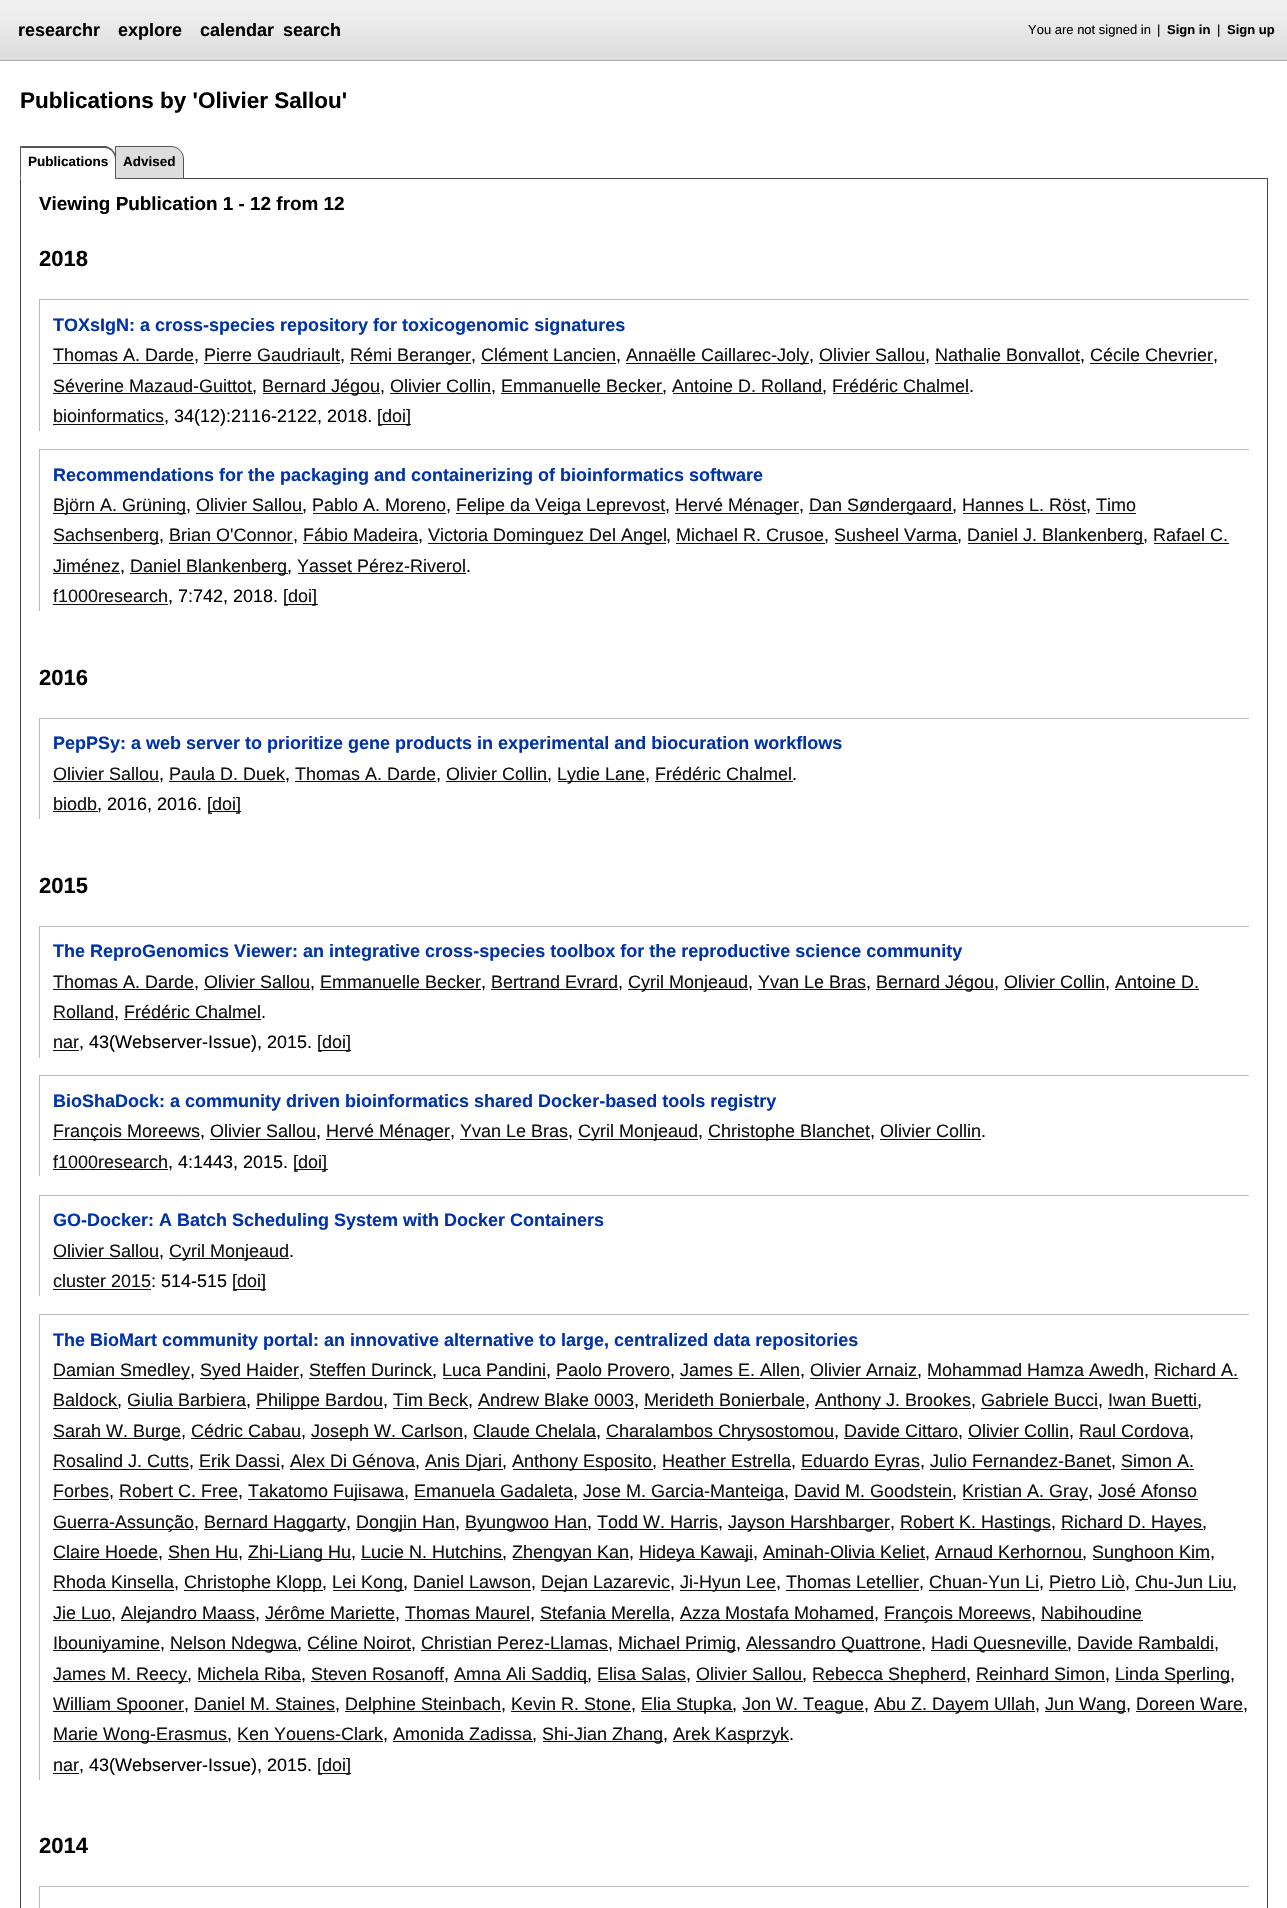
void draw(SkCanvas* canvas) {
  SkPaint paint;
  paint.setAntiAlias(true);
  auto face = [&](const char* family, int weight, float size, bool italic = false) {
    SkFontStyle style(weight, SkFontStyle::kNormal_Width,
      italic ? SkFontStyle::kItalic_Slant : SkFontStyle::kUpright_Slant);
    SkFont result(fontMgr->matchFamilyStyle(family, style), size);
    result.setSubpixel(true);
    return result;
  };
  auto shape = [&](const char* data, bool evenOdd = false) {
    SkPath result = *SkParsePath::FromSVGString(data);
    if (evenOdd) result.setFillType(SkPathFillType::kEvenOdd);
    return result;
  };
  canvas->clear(0xffffffff);
  {
    const SkColor colors[] = {0xffdddddd, 0xffefefef};
    const float stops[] = {0.1f, 0.8f};
    const SkPoint ends[] = {{0, 60}, {0, 0}};
    paint.setShader(SkGradientShader::MakeLinear(ends, colors, stops, 2, SkTileMode::kClamp));
    paint.setAlpha(255);
  }
  canvas->drawRect(SkRect::MakeXYWH(0, 0, 1287, 60), paint);
  paint.setShader(nullptr);
  paint.setColor(0xffaaaaaa);
  canvas->drawRect(SkRect::MakeXYWH(0, 60, 1287, 1), paint);
  paint.setStroke(true);
  paint.setStrokeWidth(1);
  paint.setColor(0xff444444);
  canvas->drawRect(SkRect::MakeXYWH(20.5f, 178.5f, 1247, 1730), paint);
  paint.setStroke(false);
  paint.setColor(0xffffffff);
  canvas->drawPath(shape("M20 146H103C110 146 116 152 116 159V179H20Z"), paint);
  paint.setColor(0xff555555);
  canvas->drawPath(shape("M20 146H106C109 147 111 148 113 150L111 151C110 149 107 148 104 148H22Z"), paint);
  canvas->drawPath(shape("M112.5 150C115 152 116 155.5 116 159V178.5L115 177.5V159C115 156 113.5 153 111.5 151Z"), paint);
  paint.setColor(0xffffffff);
  canvas->drawPath(shape("M116 179H20L21 178H115Z"), paint);
  paint.setColor(0xff555555);
  canvas->drawPath(shape("M21 148H22L20 146V179L21 178Z"), paint);
  paint.setColor(0xffdddddd);
  canvas->drawPath(shape("M115.5 146.5H171C178 146.5 183.5 152 183.5 159V178.5H115.5Z"), paint);
  paint.setStroke(true);
  paint.setColor(0xff555555);
  canvas->drawPath(shape("M115.5 146.5H171C178 146.5 183.5 152 183.5 159V178.5H115.5Z"), paint);
  paint.setStroke(false);
  {
    const struct { float x, y, w, h; SkColor color; } items[] = {
      {39, 299, 1210, 1, 0xffbbbbbb},
      {39, 299, 1, 132, 0xffbbbbbb},
      {53, 363, 141, 1, 0xff111111},
      {204, 363, 136, 1, 0xff111111},
      {350, 363, 121, 1, 0xff111111},
      {481, 363, 135, 1, 0xff111111},
      {626, 363, 183, 1, 0xff111111},
      {819, 363, 106, 1, 0xff111111},
      {935, 363, 145, 1, 0xff111111},
      {1090, 363, 123, 1, 0xff111111},
      {53, 393, 200, 1, 0xff111111},
      {263, 393, 117, 1, 0xff111111},
      {390, 393, 101, 1, 0xff111111},
      {501, 393, 162, 1, 0xff111111},
      {673, 393, 150, 1, 0xff111111},
      {833, 393, 136, 1, 0xff111111},
      {53, 424, 111, 1, 0xff111111},
      {378, 424, 33, 1, 0xff111111},
      {39, 449, 1210, 1, 0xffbbbbbb},
      {39, 449, 1, 162, 0xffbbbbbb},
      {53, 513, 133, 1, 0xff111111},
      {196, 513, 107, 1, 0xff111111},
      {313, 513, 133, 1, 0xff111111},
      {456, 513, 209, 1, 0xff111111},
      {675, 513, 124, 1, 0xff111111},
      {809, 513, 144, 1, 0xff111111},
      {963, 513, 123, 1, 0xff111111},
      {1096, 513, 40, 1, 0xff111111},
      {53, 543, 106, 1, 0xff111111},
      {169, 543, 124, 1, 0xff111111},
      {303, 543, 115, 1, 0xff111111},
      {428, 543, 238, 1, 0xff111111},
      {676, 543, 149, 1, 0xff111111},
      {835, 543, 123, 1, 0xff111111},
      {968, 543, 176, 1, 0xff111111},
      {1154, 543, 75, 1, 0xff111111},
      {53, 573, 67, 1, 0xff111111},
      {130, 573, 158, 1, 0xff111111},
      {298, 573, 168, 1, 0xff111111},
      {53, 604, 115, 1, 0xff111111},
      {284, 604, 34, 1, 0xff111111},
      {39, 718, 1210, 1, 0xffbbbbbb},
      {39, 718, 1, 101, 0xffbbbbbb},
      {53, 781, 106, 1, 0xff111111},
      {169, 781, 116, 1, 0xff111111},
      {295, 781, 141, 1, 0xff111111},
      {446, 781, 102, 1, 0xff111111},
      {558, 781, 87, 1, 0xff111111},
      {655, 781, 138, 1, 0xff111111},
      {53, 811, 45, 1, 0xff111111},
      {208, 811, 33, 1, 0xff111111},
      {39, 926, 1210, 1, 0xffbbbbbb},
      {39, 926, 1, 132, 0xffbbbbbb},
      {53, 989, 141, 1, 0xff111111},
      {204, 989, 106, 1, 0xff111111},
      {320, 989, 161, 1, 0xff111111},
      {491, 989, 127, 1, 0xff111111},
      {628, 989, 120, 1, 0xff111111},
      {758, 989, 108, 1, 0xff111111},
      {876, 989, 118, 1, 0xff111111},
      {1004, 989, 101, 1, 0xff111111},
      {1115, 989, 84, 1, 0xff111111},
      {53, 1019, 61, 1, 0xff111111},
      {124, 1019, 137, 1, 0xff111111},
      {53, 1050, 26, 1, 0xff111111},
      {318, 1050, 33, 1, 0xff111111},
      {39, 1075, 1210, 1, 0xffbbbbbb},
      {39, 1075, 1, 101, 0xffbbbbbb},
      {53, 1139, 147, 1, 0xff111111},
      {210, 1139, 106, 1, 0xff111111},
      {326, 1139, 124, 1, 0xff111111},
      {460, 1139, 108, 1, 0xff111111},
      {578, 1139, 120, 1, 0xff111111},
      {708, 1139, 162, 1, 0xff111111},
      {880, 1139, 101, 1, 0xff111111},
      {53, 1169, 115, 1, 0xff111111},
      {294, 1169, 34, 1, 0xff111111},
      {39, 1195, 1210, 1, 0xffbbbbbb},
      {39, 1195, 1, 101, 0xffbbbbbb},
      {53, 1258, 106, 1, 0xff111111},
      {169, 1258, 120, 1, 0xff111111},
      {53, 1289, 98, 1, 0xff111111},
      {233, 1289, 33, 1, 0xff111111},
      {39, 1314, 1210, 1, 0xffbbbbbb},
      {39, 1314, 1, 466, 0xffbbbbbb},
      {53, 1378, 137, 1, 0xff111111},
      {200, 1378, 99, 1, 0xff111111},
      {309, 1378, 124, 1, 0xff111111},
      {443, 1378, 103, 1, 0xff111111},
      {556, 1378, 114, 1, 0xff111111},
      {680, 1378, 120, 1, 0xff111111},
      {810, 1378, 108, 1, 0xff111111},
      {928, 1378, 216, 1, 0xff111111},
      {1154, 1378, 84, 1, 0xff111111},
      {53, 1408, 65, 1, 0xff111111},
      {128, 1408, 118, 1, 0xff111111},
      {256, 1408, 127, 1, 0xff111111},
      {393, 1408, 75, 1, 0xff111111},
      {478, 1408, 156, 1, 0xff111111},
      {644, 1408, 161, 1, 0xff111111},
      {815, 1408, 156, 1, 0xff111111},
      {981, 1408, 117, 1, 0xff111111},
      {1108, 1408, 90, 1, 0xff111111},
      {53, 1438, 128, 1, 0xff111111},
      {191, 1438, 110, 1, 0xff111111},
      {311, 1438, 152, 1, 0xff111111},
      {473, 1438, 123, 1, 0xff111111},
      {606, 1438, 228, 1, 0xff111111},
      {844, 1438, 114, 1, 0xff111111},
      {968, 1438, 101, 1, 0xff111111},
      {1079, 1438, 110, 1, 0xff111111},
      {53, 1469, 136, 1, 0xff111111},
      {199, 1469, 81, 1, 0xff111111},
      {290, 1469, 125, 1, 0xff111111},
      {425, 1469, 78, 1, 0xff111111},
      {513, 1469, 140, 1, 0xff111111},
      {663, 1469, 128, 1, 0xff111111},
      {801, 1469, 119, 1, 0xff111111},
      {930, 1469, 181, 1, 0xff111111},
      {1121, 1469, 73, 1, 0xff111111},
      {53, 1499, 56, 1, 0xff111111},
      {119, 1499, 119, 1, 0xff111111},
      {248, 1499, 156, 1, 0xff111111},
      {414, 1499, 159, 1, 0xff111111},
      {583, 1499, 201, 1, 0xff111111},
      {794, 1499, 159, 1, 0xff111111},
      {963, 1499, 125, 1, 0xff111111},
      {1098, 1499, 100, 1, 0xff111111},
      {53, 1529, 141, 1, 0xff111111},
      {204, 1529, 142, 1, 0xff111111},
      {356, 1529, 99, 1, 0xff111111},
      {465, 1529, 123, 1, 0xff111111},
      {598, 1529, 120, 1, 0xff111111},
      {728, 1529, 162, 1, 0xff111111},
      {900, 1529, 151, 1, 0xff111111},
      {1061, 1529, 142, 1, 0xff111111},
      {53, 1559, 105, 1, 0xff111111},
      {168, 1559, 70, 1, 0xff111111},
      {248, 1559, 103, 1, 0xff111111},
      {361, 1559, 142, 1, 0xff111111},
      {513, 1559, 116, 1, 0xff111111},
      {639, 1559, 114, 1, 0xff111111},
      {763, 1559, 162, 1, 0xff111111},
      {935, 1559, 148, 1, 0xff111111},
      {1093, 1559, 117, 1, 0xff111111},
      {53, 1590, 121, 1, 0xff111111},
      {184, 1590, 139, 1, 0xff111111},
      {333, 1590, 71, 1, 0xff111111},
      {414, 1590, 117, 1, 0xff111111},
      {541, 1590, 129, 1, 0xff111111},
      {680, 1590, 96, 1, 0xff111111},
      {786, 1590, 133, 1, 0xff111111},
      {929, 1590, 110, 1, 0xff111111},
      {1049, 1590, 76, 1, 0xff111111},
      {1135, 1590, 98, 1, 0xff111111},
      {53, 1620, 58, 1, 0xff111111},
      {121, 1620, 134, 1, 0xff111111},
      {265, 1620, 130, 1, 0xff111111},
      {405, 1620, 125, 1, 0xff111111},
      {540, 1620, 130, 1, 0xff111111},
      {680, 1620, 194, 1, 0xff111111},
      {884, 1620, 147, 1, 0xff111111},
      {1041, 1620, 102, 1, 0xff111111},
      {53, 1650, 107, 1, 0xff111111},
      {170, 1650, 128, 1, 0xff111111},
      {308, 1650, 103, 1, 0xff111111},
      {421, 1650, 187, 1, 0xff111111},
      {618, 1650, 118, 1, 0xff111111},
      {746, 1650, 175, 1, 0xff111111},
      {931, 1650, 137, 1, 0xff111111},
      {1078, 1650, 136, 1, 0xff111111},
      {53, 1681, 135, 1, 0xff111111},
      {198, 1681, 103, 1, 0xff111111},
      {311, 1681, 133, 1, 0xff111111},
      {454, 1681, 134, 1, 0xff111111},
      {598, 1681, 88, 1, 0xff111111},
      {696, 1681, 107, 1, 0xff111111},
      {813, 1681, 153, 1, 0xff111111},
      {976, 1681, 129, 1, 0xff111111},
      {1115, 1681, 115, 1, 0xff111111},
      {53, 1711, 131, 1, 0xff111111},
      {194, 1711, 141, 1, 0xff111111},
      {345, 1711, 156, 1, 0xff111111},
      {511, 1711, 120, 1, 0xff111111},
      {641, 1711, 92, 1, 0xff111111},
      {743, 1711, 121, 1, 0xff111111},
      {874, 1711, 161, 1, 0xff111111},
      {1045, 1711, 81, 1, 0xff111111},
      {1136, 1711, 107, 1, 0xff111111},
      {53, 1741, 175, 1, 0xff111111},
      {238, 1741, 145, 1, 0xff111111},
      {393, 1741, 140, 1, 0xff111111},
      {543, 1741, 120, 1, 0xff111111},
      {673, 1741, 116, 1, 0xff111111},
      {53, 1773, 26, 1, 0xff111111},
      {318, 1773, 33, 1, 0xff111111},
      {39, 1886, 1210, 1, 0xffbbbbbb},
      {39, 1886, 1, 22, 0xffbbbbbb},
    };
    for (auto [x, y, w, h, color] : items) {
      paint.setColor(color);
      canvas->drawRect(SkRect::MakeXYWH(x, y, w, h), paint);
    }
  }
  auto f0 = face("Liberation Sans", 700, 18);
  paint.setColor(0xff000000);
  {
    const struct { const char* s; float x, y; } items[] = {
      {"researchr", 18, 36},
      {"explore", 118, 36},
      {"calendar", 200, 36},
      {"search", 283, 36},
    };
    for (auto [s, x, y] : items) {
      canvas->drawString(s, x, y, f0, paint);
    }
  }
  auto f1 = face("Liberation Sans", 400, 13);
  canvas->drawString("You are not signed in", 1028, 34, f1, paint);
  canvas->drawString("|", 1157, 34, f1, paint);
  auto f2 = face("Liberation Sans", 700, 13);
  canvas->drawString("Sign in", 1167, 34, f2, paint);
  canvas->drawString("|", 1217, 34, f1, paint);
  canvas->drawString("Sign up", 1227, 34, f2, paint);
  auto f3 = face("Liberation Sans", 700, 22.5f);
  canvas->drawString("Publications by 'Olivier Sallou'", 20, 108, f3, paint);
  auto f4 = face("Liberation Sans", 700, 13.5f);
  canvas->drawString("Publications", 28, 166, f4, paint);
  canvas->drawString("Advised", 123, 166, f4, paint);
  auto f5 = face("Liberation Sans", 700, 18.9f);
  canvas->drawString("Viewing Publication 1 - 12 from 12", 39, 210, f5, paint);
  auto f6 = face("Liberation Sans", 700, 22);
  canvas->drawString("2018", 39, 266, f6, paint);
  paint.setColor(0xff0033aa);
  canvas->drawString("TOXsIgN: a cross-species repository for toxicogenomic signatures", 53, 331, f0, paint);
  auto f7 = face("Liberation Sans", 400, 18);
  paint.setColor(0xff111111);
  canvas->drawString("Thomas A. Darde", 53, 361, f7, paint);
  paint.setColor(0xff000000);
  canvas->drawString(",", 194, 361, f7, paint);
  paint.setColor(0xff111111);
  canvas->drawString("Pierre Gaudriault", 204, 361, f7, paint);
  paint.setColor(0xff000000);
  canvas->drawString(",", 340, 361, f7, paint);
  paint.setColor(0xff111111);
  canvas->drawString("Rémi Beranger", 350, 361, f7, paint);
  paint.setColor(0xff000000);
  canvas->drawString(",", 471, 361, f7, paint);
  paint.setColor(0xff111111);
  canvas->drawString("Clément Lancien", 481, 361, f7, paint);
  paint.setColor(0xff000000);
  canvas->drawString(",", 616, 361, f7, paint);
  paint.setColor(0xff111111);
  canvas->drawString("Annaëlle Caillarec-Joly", 626, 361, f7, paint);
  paint.setColor(0xff000000);
  canvas->drawString(",", 809, 361, f7, paint);
  paint.setColor(0xff111111);
  canvas->drawString("Olivier Sallou", 819, 361, f7, paint);
  paint.setColor(0xff000000);
  canvas->drawString(",", 925, 361, f7, paint);
  paint.setColor(0xff111111);
  canvas->drawString("Nathalie Bonvallot", 935, 361, f7, paint);
  paint.setColor(0xff000000);
  canvas->drawString(",", 1080, 361, f7, paint);
  paint.setColor(0xff111111);
  canvas->drawString("Cécile Chevrier", 1090, 361, f7, paint);
  paint.setColor(0xff000000);
  canvas->drawString(",", 1213, 361, f7, paint);
  paint.setColor(0xff111111);
  canvas->drawString("Séverine Mazaud-Guittot", 53, 392, f7, paint);
  paint.setColor(0xff000000);
  canvas->drawString(",", 252, 392, f7, paint);
  paint.setColor(0xff111111);
  canvas->drawString("Bernard Jégou", 262, 392, f7, paint);
  paint.setColor(0xff000000);
  canvas->drawString(",", 380, 392, f7, paint);
  paint.setColor(0xff111111);
  canvas->drawString("Olivier Collin", 390, 392, f7, paint);
  paint.setColor(0xff000000);
  canvas->drawString(",", 491, 392, f7, paint);
  paint.setColor(0xff111111);
  canvas->drawString("Emmanuelle Becker", 501, 392, f7, paint);
  paint.setColor(0xff000000);
  canvas->drawString(",", 662, 392, f7, paint);
  paint.setColor(0xff111111);
  canvas->drawString("Antoine D. Rolland", 672, 392, f7, paint);
  paint.setColor(0xff000000);
  canvas->drawString(",", 822, 392, f7, paint);
  paint.setColor(0xff111111);
  canvas->drawString("Frédéric Chalmel", 832, 392, f7, paint);
  paint.setColor(0xff000000);
  canvas->drawString(".", 969, 392, f7, paint);
  paint.setColor(0xff111111);
  canvas->drawString("bioinformatics", 53, 422, f7, paint);
  paint.setColor(0xff000000);
  canvas->drawString(", 34(12):2116-2122, 2018.", 164, 422, f7, paint);
  paint.setColor(0xff111111);
  canvas->drawString("[doi]", 377, 422, f7, paint);
  paint.setColor(0xff0033aa);
  canvas->drawString("Recommendations for the packaging and containerizing of bioinformatics software", 53, 481, f0, paint);
  paint.setColor(0xff111111);
  canvas->drawString("Björn A. Grüning", 53, 511, f7, paint);
  paint.setColor(0xff000000);
  canvas->drawString(",", 186, 511, f7, paint);
  paint.setColor(0xff111111);
  canvas->drawString("Olivier Sallou", 196, 511, f7, paint);
  paint.setColor(0xff000000);
  canvas->drawString(",", 302, 511, f7, paint);
  paint.setColor(0xff111111);
  canvas->drawString("Pablo A. Moreno", 312, 511, f7, paint);
  paint.setColor(0xff000000);
  canvas->drawString(",", 446, 511, f7, paint);
  paint.setColor(0xff111111);
  canvas->drawString("Felipe da Veiga Leprevost", 456, 511, f7, paint);
  paint.setColor(0xff000000);
  canvas->drawString(",", 665, 511, f7, paint);
  paint.setColor(0xff111111);
  canvas->drawString("Hervé Ménager", 675, 511, f7, paint);
  paint.setColor(0xff000000);
  canvas->drawString(",", 799, 511, f7, paint);
  paint.setColor(0xff111111);
  canvas->drawString("Dan Søndergaard", 809, 511, f7, paint);
  paint.setColor(0xff000000);
  canvas->drawString(",", 952, 511, f7, paint);
  paint.setColor(0xff111111);
  canvas->drawString("Hannes L. Röst", 962, 511, f7, paint);
  paint.setColor(0xff000000);
  canvas->drawString(",", 1086, 511, f7, paint);
  paint.setColor(0xff111111);
  canvas->drawString("Timo", 1096, 511, f7, paint);
  canvas->drawString("Sachsenberg", 53, 541, f7, paint);
  paint.setColor(0xff000000);
  canvas->drawString(",", 159, 541, f7, paint);
  paint.setColor(0xff111111);
  canvas->drawString("Brian O'Connor", 169, 541, f7, paint);
  paint.setColor(0xff000000);
  canvas->drawString(",", 293, 541, f7, paint);
  paint.setColor(0xff111111);
  canvas->drawString("Fábio Madeira", 303, 541, f7, paint);
  paint.setColor(0xff000000);
  canvas->drawString(",", 418, 541, f7, paint);
  paint.setColor(0xff111111);
  canvas->drawString("Victoria Dominguez Del Angel", 428, 541, f7, paint);
  paint.setColor(0xff000000);
  canvas->drawString(",", 666, 541, f7, paint);
  paint.setColor(0xff111111);
  canvas->drawString("Michael R. Crusoe", 676, 541, f7, paint);
  paint.setColor(0xff000000);
  canvas->drawString(",", 824, 541, f7, paint);
  paint.setColor(0xff111111);
  canvas->drawString("Susheel Varma", 834, 541, f7, paint);
  paint.setColor(0xff000000);
  canvas->drawString(",", 957, 541, f7, paint);
  paint.setColor(0xff111111);
  canvas->drawString("Daniel J. Blankenberg", 967, 541, f7, paint);
  paint.setColor(0xff000000);
  canvas->drawString(",", 1143, 541, f7, paint);
  paint.setColor(0xff111111);
  canvas->drawString("Rafael C.", 1153, 541, f7, paint);
  canvas->drawString("Jiménez", 53, 572, f7, paint);
  paint.setColor(0xff000000);
  canvas->drawString(",", 120, 572, f7, paint);
  paint.setColor(0xff111111);
  canvas->drawString("Daniel Blankenberg", 130, 572, f7, paint);
  paint.setColor(0xff000000);
  canvas->drawString(",", 287, 572, f7, paint);
  paint.setColor(0xff111111);
  canvas->drawString("Yasset Pérez-Riverol", 297, 572, f7, paint);
  paint.setColor(0xff000000);
  canvas->drawString(".", 466, 572, f7, paint);
  paint.setColor(0xff111111);
  canvas->drawString("f1000research", 53, 602, f7, paint);
  paint.setColor(0xff000000);
  canvas->drawString(", 7:742, 2018.", 168, 602, f7, paint);
  paint.setColor(0xff111111);
  canvas->drawString("[doi]", 283, 602, f7, paint);
  paint.setColor(0xff000000);
  canvas->drawString("2016", 39, 685, f6, paint);
  paint.setColor(0xff0033aa);
  canvas->drawString("PepPSy: a web server to prioritize gene products in experimental and biocuration workflows", 53, 749, f0, paint);
  paint.setColor(0xff111111);
  canvas->drawString("Olivier Sallou", 53, 780, f7, paint);
  paint.setColor(0xff000000);
  canvas->drawString(",", 159, 780, f7, paint);
  paint.setColor(0xff111111);
  canvas->drawString("Paula D. Duek", 169, 780, f7, paint);
  paint.setColor(0xff000000);
  canvas->drawString(",", 285, 780, f7, paint);
  paint.setColor(0xff111111);
  canvas->drawString("Thomas A. Darde", 295, 780, f7, paint);
  paint.setColor(0xff000000);
  canvas->drawString(",", 436, 780, f7, paint);
  paint.setColor(0xff111111);
  canvas->drawString("Olivier Collin", 446, 780, f7, paint);
  paint.setColor(0xff000000);
  canvas->drawString(",", 547, 780, f7, paint);
  paint.setColor(0xff111111);
  canvas->drawString("Lydie Lane", 557, 780, f7, paint);
  paint.setColor(0xff000000);
  canvas->drawString(",", 645, 780, f7, paint);
  paint.setColor(0xff111111);
  canvas->drawString("Frédéric Chalmel", 655, 780, f7, paint);
  paint.setColor(0xff000000);
  canvas->drawString(".", 792, 780, f7, paint);
  paint.setColor(0xff111111);
  canvas->drawString("biodb", 53, 810, f7, paint);
  paint.setColor(0xff000000);
  canvas->drawString(", 2016, 2016.", 97, 810, f7, paint);
  paint.setColor(0xff111111);
  canvas->drawString("[doi]", 207, 810, f7, paint);
  paint.setColor(0xff000000);
  canvas->drawString("2015", 39, 893, f6, paint);
  paint.setColor(0xff0033aa);
  canvas->drawString("The ReproGenomics Viewer: an integrative cross-species toolbox for the reproductive science community", 53, 957, f0, paint);
  paint.setColor(0xff111111);
  canvas->drawString("Thomas A. Darde", 53, 988, f7, paint);
  paint.setColor(0xff000000);
  canvas->drawString(",", 194, 988, f7, paint);
  paint.setColor(0xff111111);
  canvas->drawString("Olivier Sallou", 204, 988, f7, paint);
  paint.setColor(0xff000000);
  canvas->drawString(",", 310, 988, f7, paint);
  paint.setColor(0xff111111);
  canvas->drawString("Emmanuelle Becker", 320, 988, f7, paint);
  paint.setColor(0xff000000);
  canvas->drawString(",", 481, 988, f7, paint);
  paint.setColor(0xff111111);
  canvas->drawString("Bertrand Evrard", 491, 988, f7, paint);
  paint.setColor(0xff000000);
  canvas->drawString(",", 618, 988, f7, paint);
  paint.setColor(0xff111111);
  canvas->drawString("Cyril Monjeaud", 628, 988, f7, paint);
  paint.setColor(0xff000000);
  canvas->drawString(",", 748, 988, f7, paint);
  paint.setColor(0xff111111);
  canvas->drawString("Yvan Le Bras", 758, 988, f7, paint);
  paint.setColor(0xff000000);
  canvas->drawString(",", 866, 988, f7, paint);
  paint.setColor(0xff111111);
  canvas->drawString("Bernard Jégou", 876, 988, f7, paint);
  paint.setColor(0xff000000);
  canvas->drawString(",", 994, 988, f7, paint);
  paint.setColor(0xff111111);
  canvas->drawString("Olivier Collin", 1004, 988, f7, paint);
  paint.setColor(0xff000000);
  canvas->drawString(",", 1105, 988, f7, paint);
  paint.setColor(0xff111111);
  canvas->drawString("Antoine D.", 1115, 988, f7, paint);
  canvas->drawString("Rolland", 53, 1018, f7, paint);
  paint.setColor(0xff000000);
  canvas->drawString(",", 114, 1018, f7, paint);
  paint.setColor(0xff111111);
  canvas->drawString("Frédéric Chalmel", 124, 1018, f7, paint);
  paint.setColor(0xff000000);
  canvas->drawString(".", 261, 1018, f7, paint);
  paint.setColor(0xff111111);
  canvas->drawString("nar", 53, 1048, f7, paint);
  paint.setColor(0xff000000);
  canvas->drawString(", 43(Webserver-Issue), 2015.", 79, 1048, f7, paint);
  paint.setColor(0xff111111);
  canvas->drawString("[doi]", 317, 1048, f7, paint);
  paint.setColor(0xff0033aa);
  canvas->drawString("BioShaDock: a community driven bioinformatics shared Docker-based tools registry", 53, 1107, f0, paint);
  paint.setColor(0xff111111);
  canvas->drawString("François Moreews", 53, 1137, f7, paint);
  paint.setColor(0xff000000);
  canvas->drawString(",", 200, 1137, f7, paint);
  paint.setColor(0xff111111);
  canvas->drawString("Olivier Sallou", 210, 1137, f7, paint);
  paint.setColor(0xff000000);
  canvas->drawString(",", 316, 1137, f7, paint);
  paint.setColor(0xff111111);
  canvas->drawString("Hervé Ménager", 326, 1137, f7, paint);
  paint.setColor(0xff000000);
  canvas->drawString(",", 450, 1137, f7, paint);
  paint.setColor(0xff111111);
  canvas->drawString("Yvan Le Bras", 460, 1137, f7, paint);
  paint.setColor(0xff000000);
  canvas->drawString(",", 568, 1137, f7, paint);
  paint.setColor(0xff111111);
  canvas->drawString("Cyril Monjeaud", 578, 1137, f7, paint);
  paint.setColor(0xff000000);
  canvas->drawString(",", 698, 1137, f7, paint);
  paint.setColor(0xff111111);
  canvas->drawString("Christophe Blanchet", 708, 1137, f7, paint);
  paint.setColor(0xff000000);
  canvas->drawString(",", 870, 1137, f7, paint);
  paint.setColor(0xff111111);
  canvas->drawString("Olivier Collin", 880, 1137, f7, paint);
  paint.setColor(0xff000000);
  canvas->drawString(".", 981, 1137, f7, paint);
  paint.setColor(0xff111111);
  canvas->drawString("f1000research", 53, 1168, f7, paint);
  paint.setColor(0xff000000);
  canvas->drawString(", 4:1443, 2015.", 168, 1168, f7, paint);
  paint.setColor(0xff111111);
  canvas->drawString("[doi]", 293, 1168, f7, paint);
  paint.setColor(0xff0033aa);
  canvas->drawString("GO-Docker: A Batch Scheduling System with Docker Containers", 53, 1226, f0, paint);
  paint.setColor(0xff111111);
  canvas->drawString("Olivier Sallou", 53, 1257, f7, paint);
  paint.setColor(0xff000000);
  canvas->drawString(",", 159, 1257, f7, paint);
  paint.setColor(0xff111111);
  canvas->drawString("Cyril Monjeaud", 169, 1257, f7, paint);
  paint.setColor(0xff000000);
  canvas->drawString(".", 289, 1257, f7, paint);
  paint.setColor(0xff111111);
  canvas->drawString("cluster 2015", 53, 1287, f7, paint);
  paint.setColor(0xff000000);
  canvas->drawString(": 514-515", 151, 1287, f7, paint);
  paint.setColor(0xff111111);
  canvas->drawString("[doi]", 232, 1287, f7, paint);
  paint.setColor(0xff0033aa);
  canvas->drawString("The BioMart community portal: an innovative alternative to large, centralized data repositories", 53, 1346, f0, paint);
  paint.setColor(0xff111111);
  canvas->drawString("Damian Smedley", 53, 1376, f7, paint);
  paint.setColor(0xff000000);
  canvas->drawString(",", 190, 1376, f7, paint);
  paint.setColor(0xff111111);
  canvas->drawString("Syed Haider", 200, 1376, f7, paint);
  paint.setColor(0xff000000);
  canvas->drawString(",", 299, 1376, f7, paint);
  paint.setColor(0xff111111);
  canvas->drawString("Steffen Durinck", 309, 1376, f7, paint);
  paint.setColor(0xff000000);
  canvas->drawString(",", 432, 1376, f7, paint);
  paint.setColor(0xff111111);
  canvas->drawString("Luca Pandini", 442, 1376, f7, paint);
  paint.setColor(0xff000000);
  canvas->drawString(",", 546, 1376, f7, paint);
  paint.setColor(0xff111111);
  canvas->drawString("Paolo Provero", 556, 1376, f7, paint);
  paint.setColor(0xff000000);
  canvas->drawString(",", 670, 1376, f7, paint);
  paint.setColor(0xff111111);
  canvas->drawString("James E. Allen", 680, 1376, f7, paint);
  paint.setColor(0xff000000);
  canvas->drawString(",", 800, 1376, f7, paint);
  paint.setColor(0xff111111);
  canvas->drawString("Olivier Arnaiz", 810, 1376, f7, paint);
  paint.setColor(0xff000000);
  canvas->drawString(",", 917, 1376, f7, paint);
  paint.setColor(0xff111111);
  canvas->drawString("Mohammad Hamza Awedh", 927, 1376, f7, paint);
  paint.setColor(0xff000000);
  canvas->drawString(",", 1144, 1376, f7, paint);
  paint.setColor(0xff111111);
  canvas->drawString("Richard A.", 1154, 1376, f7, paint);
  canvas->drawString("Baldock", 53, 1406, f7, paint);
  paint.setColor(0xff000000);
  canvas->drawString(",", 117, 1406, f7, paint);
  paint.setColor(0xff111111);
  canvas->drawString("Giulia Barbiera", 127, 1406, f7, paint);
  paint.setColor(0xff000000);
  canvas->drawString(",", 246, 1406, f7, paint);
  paint.setColor(0xff111111);
  canvas->drawString("Philippe Bardou", 256, 1406, f7, paint);
  paint.setColor(0xff000000);
  canvas->drawString(",", 383, 1406, f7, paint);
  paint.setColor(0xff111111);
  canvas->drawString("Tim Beck", 393, 1406, f7, paint);
  paint.setColor(0xff000000);
  canvas->drawString(",", 468, 1406, f7, paint);
  paint.setColor(0xff111111);
  canvas->drawString("Andrew Blake 0003", 478, 1406, f7, paint);
  paint.setColor(0xff000000);
  canvas->drawString(",", 634, 1406, f7, paint);
  paint.setColor(0xff111111);
  canvas->drawString("Merideth Bonierbale", 644, 1406, f7, paint);
  paint.setColor(0xff000000);
  canvas->drawString(",", 805, 1406, f7, paint);
  paint.setColor(0xff111111);
  canvas->drawString("Anthony J. Brookes", 815, 1406, f7, paint);
  paint.setColor(0xff000000);
  canvas->drawString(",", 971, 1406, f7, paint);
  paint.setColor(0xff111111);
  canvas->drawString("Gabriele Bucci", 981, 1406, f7, paint);
  paint.setColor(0xff000000);
  canvas->drawString(",", 1098, 1406, f7, paint);
  paint.setColor(0xff111111);
  canvas->drawString("Iwan Buetti", 1108, 1406, f7, paint);
  paint.setColor(0xff000000);
  canvas->drawString(",", 1197, 1406, f7, paint);
  paint.setColor(0xff111111);
  canvas->drawString("Sarah W. Burge", 53, 1437, f7, paint);
  paint.setColor(0xff000000);
  canvas->drawString(",", 181, 1437, f7, paint);
  paint.setColor(0xff111111);
  canvas->drawString("Cédric Cabau", 191, 1437, f7, paint);
  paint.setColor(0xff000000);
  canvas->drawString(",", 301, 1437, f7, paint);
  paint.setColor(0xff111111);
  canvas->drawString("Joseph W. Carlson", 311, 1437, f7, paint);
  paint.setColor(0xff000000);
  canvas->drawString(",", 463, 1437, f7, paint);
  paint.setColor(0xff111111);
  canvas->drawString("Claude Chelala", 473, 1437, f7, paint);
  paint.setColor(0xff000000);
  canvas->drawString(",", 596, 1437, f7, paint);
  paint.setColor(0xff111111);
  canvas->drawString("Charalambos Chrysostomou", 606, 1437, f7, paint);
  paint.setColor(0xff000000);
  canvas->drawString(",", 834, 1437, f7, paint);
  paint.setColor(0xff111111);
  canvas->drawString("Davide Cittaro", 844, 1437, f7, paint);
  paint.setColor(0xff000000);
  canvas->drawString(",", 958, 1437, f7, paint);
  paint.setColor(0xff111111);
  canvas->drawString("Olivier Collin", 968, 1437, f7, paint);
  paint.setColor(0xff000000);
  canvas->drawString(",", 1069, 1437, f7, paint);
  paint.setColor(0xff111111);
  canvas->drawString("Raul Cordova", 1079, 1437, f7, paint);
  paint.setColor(0xff000000);
  canvas->drawString(",", 1189, 1437, f7, paint);
  paint.setColor(0xff111111);
  canvas->drawString("Rosalind J. Cutts", 53, 1467, f7, paint);
  paint.setColor(0xff000000);
  canvas->drawString(",", 189, 1467, f7, paint);
  paint.setColor(0xff111111);
  canvas->drawString("Erik Dassi", 199, 1467, f7, paint);
  paint.setColor(0xff000000);
  canvas->drawString(",", 280, 1467, f7, paint);
  paint.setColor(0xff111111);
  canvas->drawString("Alex Di Génova", 290, 1467, f7, paint);
  paint.setColor(0xff000000);
  canvas->drawString(",", 415, 1467, f7, paint);
  paint.setColor(0xff111111);
  canvas->drawString("Anis Djari", 425, 1467, f7, paint);
  paint.setColor(0xff000000);
  canvas->drawString(",", 502, 1467, f7, paint);
  paint.setColor(0xff111111);
  canvas->drawString("Anthony Esposito", 512, 1467, f7, paint);
  paint.setColor(0xff000000);
  canvas->drawString(",", 652, 1467, f7, paint);
  paint.setColor(0xff111111);
  canvas->drawString("Heather Estrella", 662, 1467, f7, paint);
  paint.setColor(0xff000000);
  canvas->drawString(",", 791, 1467, f7, paint);
  paint.setColor(0xff111111);
  canvas->drawString("Eduardo Eyras", 801, 1467, f7, paint);
  paint.setColor(0xff000000);
  canvas->drawString(",", 920, 1467, f7, paint);
  paint.setColor(0xff111111);
  canvas->drawString("Julio Fernandez-Banet", 930, 1467, f7, paint);
  paint.setColor(0xff000000);
  canvas->drawString(",", 1111, 1467, f7, paint);
  paint.setColor(0xff111111);
  canvas->drawString("Simon A.", 1121, 1467, f7, paint);
  canvas->drawString("Forbes", 53, 1497, f7, paint);
  paint.setColor(0xff000000);
  canvas->drawString(",", 109, 1497, f7, paint);
  paint.setColor(0xff111111);
  canvas->drawString("Robert C. Free", 119, 1497, f7, paint);
  paint.setColor(0xff000000);
  canvas->drawString(",", 238, 1497, f7, paint);
  paint.setColor(0xff111111);
  canvas->drawString("Takatomo Fujisawa", 248, 1497, f7, paint);
  paint.setColor(0xff000000);
  canvas->drawString(",", 404, 1497, f7, paint);
  paint.setColor(0xff111111);
  canvas->drawString("Emanuela Gadaleta", 414, 1497, f7, paint);
  paint.setColor(0xff000000);
  canvas->drawString(",", 573, 1497, f7, paint);
  paint.setColor(0xff111111);
  canvas->drawString("Jose M. Garcia-Manteiga", 583, 1497, f7, paint);
  paint.setColor(0xff000000);
  canvas->drawString(",", 784, 1497, f7, paint);
  paint.setColor(0xff111111);
  canvas->drawString("David M. Goodstein", 794, 1497, f7, paint);
  paint.setColor(0xff000000);
  canvas->drawString(",", 952, 1497, f7, paint);
  paint.setColor(0xff111111);
  canvas->drawString("Kristian A. Gray", 962, 1497, f7, paint);
  paint.setColor(0xff000000);
  canvas->drawString(",", 1088, 1497, f7, paint);
  paint.setColor(0xff111111);
  canvas->drawString("José Afonso", 1098, 1497, f7, paint);
  canvas->drawString("Guerra-Assunção", 53, 1528, f7, paint);
  paint.setColor(0xff000000);
  canvas->drawString(",", 194, 1528, f7, paint);
  paint.setColor(0xff111111);
  canvas->drawString("Bernard Haggarty", 204, 1528, f7, paint);
  paint.setColor(0xff000000);
  canvas->drawString(",", 346, 1528, f7, paint);
  paint.setColor(0xff111111);
  canvas->drawString("Dongjin Han", 356, 1528, f7, paint);
  paint.setColor(0xff000000);
  canvas->drawString(",", 455, 1528, f7, paint);
  paint.setColor(0xff111111);
  canvas->drawString("Byungwoo Han", 465, 1528, f7, paint);
  paint.setColor(0xff000000);
  canvas->drawString(",", 587, 1528, f7, paint);
  paint.setColor(0xff111111);
  canvas->drawString("Todd W. Harris", 597, 1528, f7, paint);
  paint.setColor(0xff000000);
  canvas->drawString(",", 718, 1528, f7, paint);
  paint.setColor(0xff111111);
  canvas->drawString("Jayson Harshbarger", 728, 1528, f7, paint);
  paint.setColor(0xff000000);
  canvas->drawString(",", 890, 1528, f7, paint);
  paint.setColor(0xff111111);
  canvas->drawString("Robert K. Hastings", 900, 1528, f7, paint);
  paint.setColor(0xff000000);
  canvas->drawString(",", 1051, 1528, f7, paint);
  paint.setColor(0xff111111);
  canvas->drawString("Richard D. Hayes", 1061, 1528, f7, paint);
  paint.setColor(0xff000000);
  canvas->drawString(",", 1202, 1528, f7, paint);
  paint.setColor(0xff111111);
  canvas->drawString("Claire Hoede", 53, 1558, f7, paint);
  paint.setColor(0xff000000);
  canvas->drawString(",", 158, 1558, f7, paint);
  paint.setColor(0xff111111);
  canvas->drawString("Shen Hu", 168, 1558, f7, paint);
  paint.setColor(0xff000000);
  canvas->drawString(",", 238, 1558, f7, paint);
  paint.setColor(0xff111111);
  canvas->drawString("Zhi-Liang Hu", 248, 1558, f7, paint);
  paint.setColor(0xff000000);
  canvas->drawString(",", 351, 1558, f7, paint);
  paint.setColor(0xff111111);
  canvas->drawString("Lucie N. Hutchins", 361, 1558, f7, paint);
  paint.setColor(0xff000000);
  canvas->drawString(",", 502, 1558, f7, paint);
  paint.setColor(0xff111111);
  canvas->drawString("Zhengyan Kan", 512, 1558, f7, paint);
  paint.setColor(0xff000000);
  canvas->drawString(",", 629, 1558, f7, paint);
  paint.setColor(0xff111111);
  canvas->drawString("Hideya Kawaji", 639, 1558, f7, paint);
  paint.setColor(0xff000000);
  canvas->drawString(",", 753, 1558, f7, paint);
  paint.setColor(0xff111111);
  canvas->drawString("Aminah-Olivia Keliet", 763, 1558, f7, paint);
  paint.setColor(0xff000000);
  canvas->drawString(",", 925, 1558, f7, paint);
  paint.setColor(0xff111111);
  canvas->drawString("Arnaud Kerhornou", 935, 1558, f7, paint);
  paint.setColor(0xff000000);
  canvas->drawString(",", 1082, 1558, f7, paint);
  paint.setColor(0xff111111);
  canvas->drawString("Sunghoon Kim", 1092, 1558, f7, paint);
  paint.setColor(0xff000000);
  canvas->drawString(",", 1210, 1558, f7, paint);
  paint.setColor(0xff111111);
  canvas->drawString("Rhoda Kinsella", 53, 1588, f7, paint);
  paint.setColor(0xff000000);
  canvas->drawString(",", 174, 1588, f7, paint);
  paint.setColor(0xff111111);
  canvas->drawString("Christophe Klopp", 184, 1588, f7, paint);
  paint.setColor(0xff000000);
  canvas->drawString(",", 322, 1588, f7, paint);
  paint.setColor(0xff111111);
  canvas->drawString("Lei Kong", 332, 1588, f7, paint);
  paint.setColor(0xff000000);
  canvas->drawString(",", 403, 1588, f7, paint);
  paint.setColor(0xff111111);
  canvas->drawString("Daniel Lawson", 413, 1588, f7, paint);
  paint.setColor(0xff000000);
  canvas->drawString(",", 531, 1588, f7, paint);
  paint.setColor(0xff111111);
  canvas->drawString("Dejan Lazarevic", 541, 1588, f7, paint);
  paint.setColor(0xff000000);
  canvas->drawString(",", 670, 1588, f7, paint);
  paint.setColor(0xff111111);
  canvas->drawString("Ji-Hyun Lee", 680, 1588, f7, paint);
  paint.setColor(0xff000000);
  canvas->drawString(",", 776, 1588, f7, paint);
  paint.setColor(0xff111111);
  canvas->drawString("Thomas Letellier", 786, 1588, f7, paint);
  paint.setColor(0xff000000);
  canvas->drawString(",", 919, 1588, f7, paint);
  paint.setColor(0xff111111);
  canvas->drawString("Chuan-Yun Li", 929, 1588, f7, paint);
  paint.setColor(0xff000000);
  canvas->drawString(",", 1039, 1588, f7, paint);
  paint.setColor(0xff111111);
  canvas->drawString("Pietro Liò", 1049, 1588, f7, paint);
  paint.setColor(0xff000000);
  canvas->drawString(",", 1125, 1588, f7, paint);
  paint.setColor(0xff111111);
  canvas->drawString("Chu-Jun Liu", 1135, 1588, f7, paint);
  paint.setColor(0xff000000);
  canvas->drawString(",", 1232, 1588, f7, paint);
  paint.setColor(0xff111111);
  canvas->drawString("Jie Luo", 53, 1619, f7, paint);
  paint.setColor(0xff000000);
  canvas->drawString(",", 111, 1619, f7, paint);
  paint.setColor(0xff111111);
  canvas->drawString("Alejandro Maass", 121, 1619, f7, paint);
  paint.setColor(0xff000000);
  canvas->drawString(",", 255, 1619, f7, paint);
  paint.setColor(0xff111111);
  canvas->drawString("Jérôme Mariette", 265, 1619, f7, paint);
  paint.setColor(0xff000000);
  canvas->drawString(",", 395, 1619, f7, paint);
  paint.setColor(0xff111111);
  canvas->drawString("Thomas Maurel", 405, 1619, f7, paint);
  paint.setColor(0xff000000);
  canvas->drawString(",", 530, 1619, f7, paint);
  paint.setColor(0xff111111);
  canvas->drawString("Stefania Merella", 540, 1619, f7, paint);
  paint.setColor(0xff000000);
  canvas->drawString(",", 670, 1619, f7, paint);
  paint.setColor(0xff111111);
  canvas->drawString("Azza Mostafa Mohamed", 680, 1619, f7, paint);
  paint.setColor(0xff000000);
  canvas->drawString(",", 874, 1619, f7, paint);
  paint.setColor(0xff111111);
  canvas->drawString("François Moreews", 884, 1619, f7, paint);
  paint.setColor(0xff000000);
  canvas->drawString(",", 1031, 1619, f7, paint);
  paint.setColor(0xff111111);
  canvas->drawString("Nabihoudine", 1041, 1619, f7, paint);
  canvas->drawString("Ibouniyamine", 53, 1649, f7, paint);
  paint.setColor(0xff000000);
  canvas->drawString(",", 160, 1649, f7, paint);
  paint.setColor(0xff111111);
  canvas->drawString("Nelson Ndegwa", 170, 1649, f7, paint);
  paint.setColor(0xff000000);
  canvas->drawString(",", 297, 1649, f7, paint);
  paint.setColor(0xff111111);
  canvas->drawString("Céline Noirot", 307, 1649, f7, paint);
  paint.setColor(0xff000000);
  canvas->drawString(",", 411, 1649, f7, paint);
  paint.setColor(0xff111111);
  canvas->drawString("Christian Perez-Llamas", 421, 1649, f7, paint);
  paint.setColor(0xff000000);
  canvas->drawString(",", 608, 1649, f7, paint);
  paint.setColor(0xff111111);
  canvas->drawString("Michael Primig", 618, 1649, f7, paint);
  paint.setColor(0xff000000);
  canvas->drawString(",", 736, 1649, f7, paint);
  paint.setColor(0xff111111);
  canvas->drawString("Alessandro Quattrone", 746, 1649, f7, paint);
  paint.setColor(0xff000000);
  canvas->drawString(",", 921, 1649, f7, paint);
  paint.setColor(0xff111111);
  canvas->drawString("Hadi Quesneville", 931, 1649, f7, paint);
  paint.setColor(0xff000000);
  canvas->drawString(",", 1067, 1649, f7, paint);
  paint.setColor(0xff111111);
  canvas->drawString("Davide Rambaldi", 1077, 1649, f7, paint);
  paint.setColor(0xff000000);
  canvas->drawString(",", 1214, 1649, f7, paint);
  paint.setColor(0xff111111);
  canvas->drawString("James M. Reecy", 53, 1680, f7, paint);
  paint.setColor(0xff000000);
  canvas->drawString(",", 187, 1680, f7, paint);
  paint.setColor(0xff111111);
  canvas->drawString("Michela Riba", 197, 1680, f7, paint);
  paint.setColor(0xff000000);
  canvas->drawString(",", 301, 1680, f7, paint);
  paint.setColor(0xff111111);
  canvas->drawString("Steven Rosanoff", 311, 1680, f7, paint);
  paint.setColor(0xff000000);
  canvas->drawString(",", 444, 1680, f7, paint);
  paint.setColor(0xff111111);
  canvas->drawString("Amna Ali Saddiq", 454, 1680, f7, paint);
  paint.setColor(0xff000000);
  canvas->drawString(",", 587, 1680, f7, paint);
  paint.setColor(0xff111111);
  canvas->drawString("Elisa Salas", 597, 1680, f7, paint);
  paint.setColor(0xff000000);
  canvas->drawString(",", 686, 1680, f7, paint);
  paint.setColor(0xff111111);
  canvas->drawString("Olivier Sallou", 696, 1680, f7, paint);
  paint.setColor(0xff000000);
  canvas->drawString(",", 802, 1680, f7, paint);
  paint.setColor(0xff111111);
  canvas->drawString("Rebecca Shepherd", 812, 1680, f7, paint);
  paint.setColor(0xff000000);
  canvas->drawString(",", 966, 1680, f7, paint);
  paint.setColor(0xff111111);
  canvas->drawString("Reinhard Simon", 976, 1680, f7, paint);
  paint.setColor(0xff000000);
  canvas->drawString(",", 1105, 1680, f7, paint);
  paint.setColor(0xff111111);
  canvas->drawString("Linda Sperling", 1115, 1680, f7, paint);
  paint.setColor(0xff000000);
  canvas->drawString(",", 1230, 1680, f7, paint);
  paint.setColor(0xff111111);
  canvas->drawString("William Spooner", 53, 1710, f7, paint);
  paint.setColor(0xff000000);
  canvas->drawString(",", 184, 1710, f7, paint);
  paint.setColor(0xff111111);
  canvas->drawString("Daniel M. Staines", 194, 1710, f7, paint);
  paint.setColor(0xff000000);
  canvas->drawString(",", 335, 1710, f7, paint);
  paint.setColor(0xff111111);
  canvas->drawString("Delphine Steinbach", 345, 1710, f7, paint);
  paint.setColor(0xff000000);
  canvas->drawString(",", 501, 1710, f7, paint);
  paint.setColor(0xff111111);
  canvas->drawString("Kevin R. Stone", 511, 1710, f7, paint);
  paint.setColor(0xff000000);
  canvas->drawString(",", 631, 1710, f7, paint);
  paint.setColor(0xff111111);
  canvas->drawString("Elia Stupka", 641, 1710, f7, paint);
  paint.setColor(0xff000000);
  canvas->drawString(",", 732, 1710, f7, paint);
  paint.setColor(0xff111111);
  canvas->drawString("Jon W. Teague", 742, 1710, f7, paint);
  paint.setColor(0xff000000);
  canvas->drawString(",", 864, 1710, f7, paint);
  paint.setColor(0xff111111);
  canvas->drawString("Abu Z. Dayem Ullah", 874, 1710, f7, paint);
  paint.setColor(0xff000000);
  canvas->drawString(",", 1035, 1710, f7, paint);
  paint.setColor(0xff111111);
  canvas->drawString("Jun Wang", 1045, 1710, f7, paint);
  paint.setColor(0xff000000);
  canvas->drawString(",", 1126, 1710, f7, paint);
  paint.setColor(0xff111111);
  canvas->drawString("Doreen Ware", 1136, 1710, f7, paint);
  paint.setColor(0xff000000);
  canvas->drawString(",", 1243, 1710, f7, paint);
  paint.setColor(0xff111111);
  canvas->drawString("Marie Wong-Erasmus", 53, 1740, f7, paint);
  paint.setColor(0xff000000);
  canvas->drawString(",", 227, 1740, f7, paint);
  paint.setColor(0xff111111);
  canvas->drawString("Ken Youens-Clark", 237, 1740, f7, paint);
  paint.setColor(0xff000000);
  canvas->drawString(",", 383, 1740, f7, paint);
  paint.setColor(0xff111111);
  canvas->drawString("Amonida Zadissa", 393, 1740, f7, paint);
  paint.setColor(0xff000000);
  canvas->drawString(",", 532, 1740, f7, paint);
  paint.setColor(0xff111111);
  canvas->drawString("Shi-Jian Zhang", 542, 1740, f7, paint);
  paint.setColor(0xff000000);
  canvas->drawString(",", 663, 1740, f7, paint);
  paint.setColor(0xff111111);
  canvas->drawString("Arek Kasprzyk", 673, 1740, f7, paint);
  paint.setColor(0xff000000);
  canvas->drawString(".", 789, 1740, f7, paint);
  paint.setColor(0xff111111);
  canvas->drawString("nar", 53, 1771, f7, paint);
  paint.setColor(0xff000000);
  canvas->drawString(", 43(Webserver-Issue), 2015.", 79, 1771, f7, paint);
  paint.setColor(0xff111111);
  canvas->drawString("[doi]", 317, 1771, f7, paint);
  paint.setColor(0xff000000);
  canvas->drawString("2014", 39, 1853, f6, paint);
}
